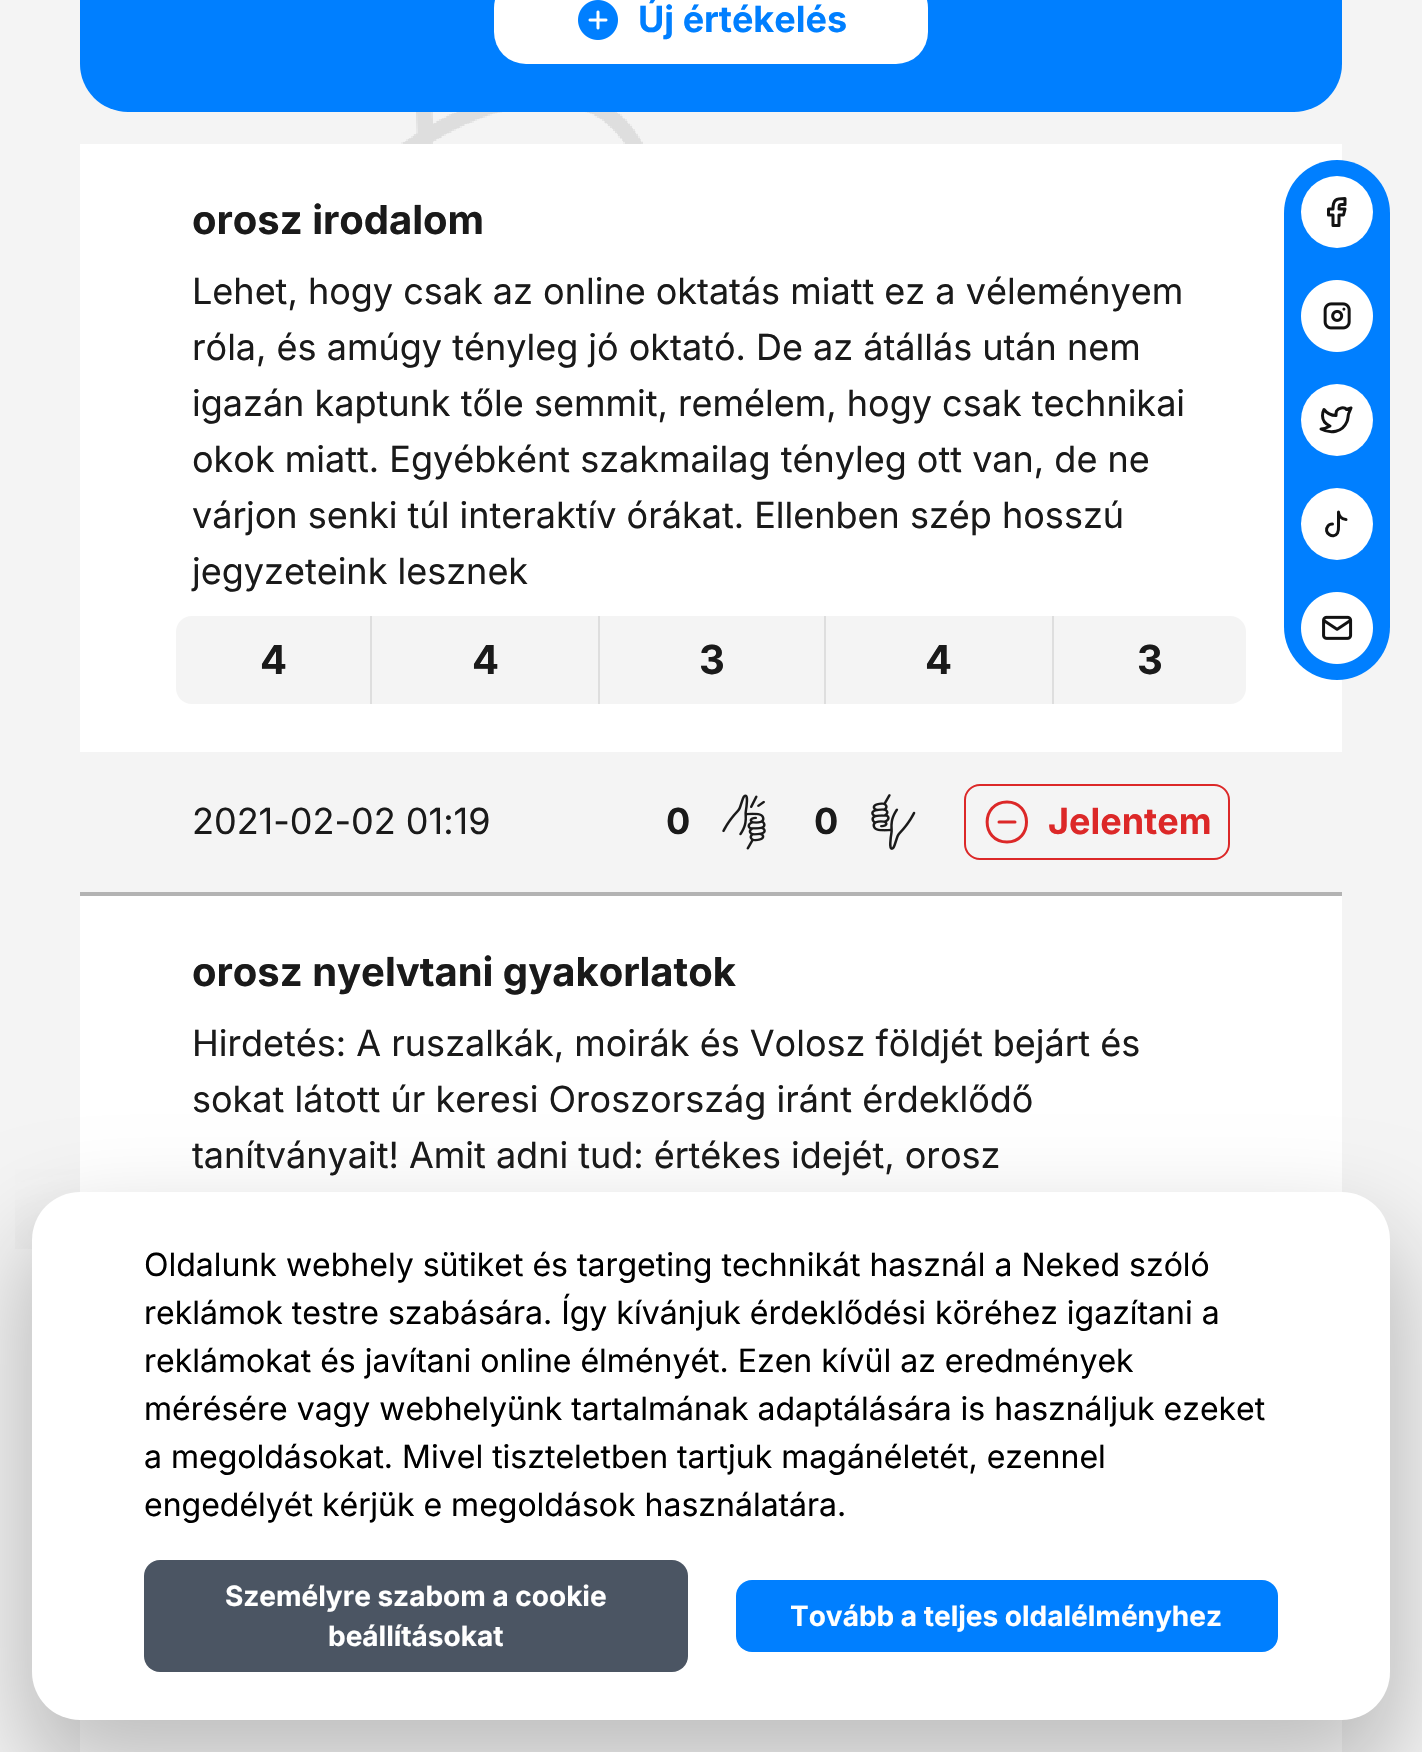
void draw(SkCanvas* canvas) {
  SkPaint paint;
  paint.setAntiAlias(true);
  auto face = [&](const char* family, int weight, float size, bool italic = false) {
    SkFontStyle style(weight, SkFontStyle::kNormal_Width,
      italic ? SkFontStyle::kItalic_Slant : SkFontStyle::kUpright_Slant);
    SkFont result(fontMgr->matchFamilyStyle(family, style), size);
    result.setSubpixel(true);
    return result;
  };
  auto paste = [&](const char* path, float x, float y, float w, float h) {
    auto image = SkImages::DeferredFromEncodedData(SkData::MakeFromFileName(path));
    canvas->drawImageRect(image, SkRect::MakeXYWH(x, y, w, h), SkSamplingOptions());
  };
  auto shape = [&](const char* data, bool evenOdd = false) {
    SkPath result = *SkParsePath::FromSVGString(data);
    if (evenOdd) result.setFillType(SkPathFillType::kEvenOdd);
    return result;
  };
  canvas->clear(0xfff4f4f4);
  paste("img/1.png", 15, 112, 628, 1137);
  paint.setColor(0xff007fff);
  canvas->drawRoundRect(SkRect::MakeXYWH(80, -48, 1262, 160), 48, 48, paint);
  paint.setColor(0xffffffff);
  canvas->drawRoundRect(SkRect::MakeXYWH(494, -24, 434, 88), 32, 32, paint);
  paste("img/2.png", 578, 0, 40, 40);
  canvas->drawRect(SkRect::MakeXYWH(80, 144, 1262, 608), paint);
  paint.setColor(0xfff4f4f4);
  canvas->drawPath(shape("M192 616H370V704H192C183 704 176 697 176 688V632C176 623 183 616 192 616Z"), paint);
  {
    const struct { float x, y, w, h; SkColor color; } items[] = {
      {372, 616, 226, 88, 0xfff4f4f4},
      {370, 616, 2, 88, 0xffdedede},
      {600, 616, 224, 88, 0xfff4f4f4},
      {598, 616, 2, 88, 0xffdedede},
      {826, 616, 226, 88, 0xfff4f4f4},
      {824, 616, 2, 88, 0xffdedede},
    };
    for (auto [x, y, w, h, color] : items) {
      paint.setColor(color);
      canvas->drawRect(SkRect::MakeXYWH(x, y, w, h), paint);
    }
  }
  paint.setColor(0xfff4f4f4);
  canvas->drawPath(shape("M1052 616H1230C1239 616 1246 623 1246 632V688C1246 697 1239 704 1230 704H1052Z"), paint);
  paint.setColor(0xffdedede);
  canvas->drawRect(SkRect::MakeXYWH(1052, 616, 2, 88), paint);
  paste("img/3.png", 722, 794, 44, 56);
  paste("img/4.png", 871, 794, 45, 56);
  paint.setStroke(true);
  paint.setStrokeWidth(2);
  paint.setColor(0xffdc2828);
  canvas->drawRoundRect(SkRect::MakeXYWH(965, 785, 264, 74), 15, 15, paint);
  paint.setStrokeWidth(3);
  paint.setStrokeCap(SkPaint::kRound_Cap);
  paint.setStrokeJoin(SkPaint::kRound_Join);
  canvas->drawPath(shape("M1007 842C1033 842 1033 802 1007 802C980.5 802 980.5 842 1007 842ZM999 822H1015"), paint);
  paint.setStroke(false);
  {
    const struct { float x, y, w, h; SkColor color; } items[] = {
      {80, 892, 1262, 4, 0xffb3b3b3},
      {80, 896, 1262, 296, 0xffffffff},
      {80, 1720, 1262, 32, 0xffffffff},
    };
    for (auto [x, y, w, h, color] : items) {
      paint.setColor(color);
      canvas->drawRect(SkRect::MakeXYWH(x, y, w, h), paint);
    }
  }
  paint.setColor(0xff007fff);
  canvas->drawRoundRect(SkRect::MakeXYWH(1284, 160, 106, 520), 53, 53, paint);
  paint.setColor(0xffffffff);
  canvas->drawCircle(1337, 212, 36, paint);
  paint.setStroke(true);
  paint.setColor(0xff121212);
  canvas->drawPath(shape("M1328.5 209V215H1333V225.5H1339V215H1343.5L1345 209H1339C1339 203.5 1339.5 204.5 1345 204.5V198.5C1336 198.5 1333 199.5 1333 209Z"), paint);
  paste("img/5.png", 1301, 280, 72, 72);
  paint.setStroke(false);
  paint.setColor(0xffffffff);
  canvas->drawCircle(1337, 420, 36, paint);
  paint.setStroke(true);
  paint.setColor(0xff121212);
  canvas->drawPath(shape("M1351 408L1346.5 409.5C1344 406.5 1338.5 408 1336.5 411C1336 412.5 1336 414 1336 415.5C1331.5 415.5 1327 413.5 1324 409.5C1324 409.5 1318 420.5 1330 426C1327.5 427.5 1324.5 429 1321 429C1330.5 434 1342.5 432.5 1347 421.5C1348 419 1348 416.5 1348.5 414Z"), paint);
  paint.setStroke(false);
  paint.setColor(0xffffffff);
  canvas->drawCircle(1337, 524, 36, paint);
  paint.setStroke(true);
  paint.setColor(0xff121212);
  canvas->drawPath(shape("M1332.5 524C1330.5 524 1329 524.5 1328 526C1322.5 532.5 1333.5 540 1337.5 533C1339 530 1338.5 526.5 1338.5 524V512C1338.5 516 1342 519.5 1346 519.5"), paint);
  paste("img/6.png", 1301, 592, 72, 72);
  paint.setStroke(false);
  paint.setColor(0x40000000);
  paint.setMaskFilter(SkMaskFilter::MakeBlur(kNormal_SkBlurStyle, 50));
  canvas->drawRoundRect(SkRect::MakeXYWH(24, 1234, 1374, 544), 56, 56, paint);
  paint.setMaskFilter(nullptr);
  paint.setColor(0xffffffff);
  canvas->drawRoundRect(SkRect::MakeXYWH(32, 1192, 1358, 528), 48, 48, paint);
  paint.setColor(0xff4b5563);
  canvas->drawRoundRect(SkRect::MakeXYWH(144, 1560, 544, 112), 16, 16, paint);
  paint.setColor(0xff007fff);
  canvas->drawRoundRect(SkRect::MakeXYWH(736, 1580, 542, 72), 16, 16, paint);
  auto f0 = face("Inter", 700, 36);
  canvas->drawString("Új értékelés", 638, 32, f0, paint);
  auto f1 = face("Inter", 700, 40);
  paint.setColor(0xff1a1a1a);
  canvas->drawString("orosz irodalom", 192, 234, f1, paint);
  auto f2 = face("Inter", 400, 36);
  {
    const struct { const char* s; float x, y; } items[] = {
      {"Lehet, hogy csak az online oktatás miatt ez a véleményem", 192, 304},
      {"róla, és amúgy tényleg jó oktató. De az átállás után nem", 192, 360},
      {"igazán kaptunk tőle semmit, remélem, hogy csak technikai", 192, 416},
      {"okok miatt. Egyébként szakmailag tényleg ott van, de ne", 192, 472},
      {"várjon senki túl interaktív órákat. Ellenben szép hosszú", 192, 528},
      {"jegyzeteink lesznek", 192, 584},
    };
    for (auto [s, x, y] : items) {
      canvas->drawString(s, x, y, f2, paint);
    }
  }
  {
    const struct { const char* s; float x, y; } items[] = {
      {"4", 260, 674},
      {"4", 472, 674},
      {"3", 699, 674},
      {"4", 925, 674},
      {"3", 1137, 674},
    };
    for (auto [s, x, y] : items) {
      canvas->drawString(s, x, y, f1, paint);
    }
  }
  canvas->drawString("2021-02-02 01:19", 192, 834, f2, paint);
  canvas->drawString("0", 666, 834, f0, paint);
  canvas->drawString("0", 814, 834, f0, paint);
  paint.setColor(0xffdc2828);
  canvas->drawString("Jelentem", 1048, 834, f0, paint);
  paint.setColor(0xff1a1a1a);
  canvas->drawString("orosz nyelvtani gyakorlatok", 192, 986, f1, paint);
  {
    const struct { const char* s; float x, y; } items[] = {
      {"Hirdetés: A ruszalkák, moirák és Volosz földjét bejárt és", 192, 1056},
      {"sokat látott úr keresi Oroszország iránt érdeklődő", 192, 1112},
      {"tanítványait! Amit adni tud: értékes idejét, orosz", 192, 1168},
    };
    for (auto [s, x, y] : items) {
      canvas->drawString(s, x, y, f2, paint);
    }
  }
  auto f3 = face("Inter", 400, 32);
  paint.setColor(0xff000000);
  {
    const struct { const char* s; float x, y; } items[] = {
      {"Oldalunk webhely sütiket és targeting technikát használ a Neked szóló", 144, 1276},
      {"reklámok testre szabására. Így kívánjuk érdeklődési köréhez igazítani a", 144, 1324},
      {"reklámokat és javítani online élményét. Ezen kívül az eredmények", 144, 1372},
      {"mérésére vagy webhelyünk tartalmának adaptálására is használjuk ezeket", 144, 1420},
      {"a megoldásokat. Mivel tiszteletben tartjuk magánéletét, ezennel", 144, 1468},
      {"engedélyét kérjük e megoldások használatára.", 144, 1516},
    };
    for (auto [s, x, y] : items) {
      canvas->drawString(s, x, y, f3, paint);
    }
  }
  auto f4 = face("Inter", 700, 28);
  paint.setColor(0xffffffff);
  {
    const struct { const char* s; float x, y; } items[] = {
      {"Személyre szabom a cookie", 225, 1606},
      {"beállításokat", 328, 1646},
      {"Tovább a teljes oldalélményhez", 790, 1626},
    };
    for (auto [s, x, y] : items) {
      canvas->drawString(s, x, y, f4, paint);
    }
  }
}
